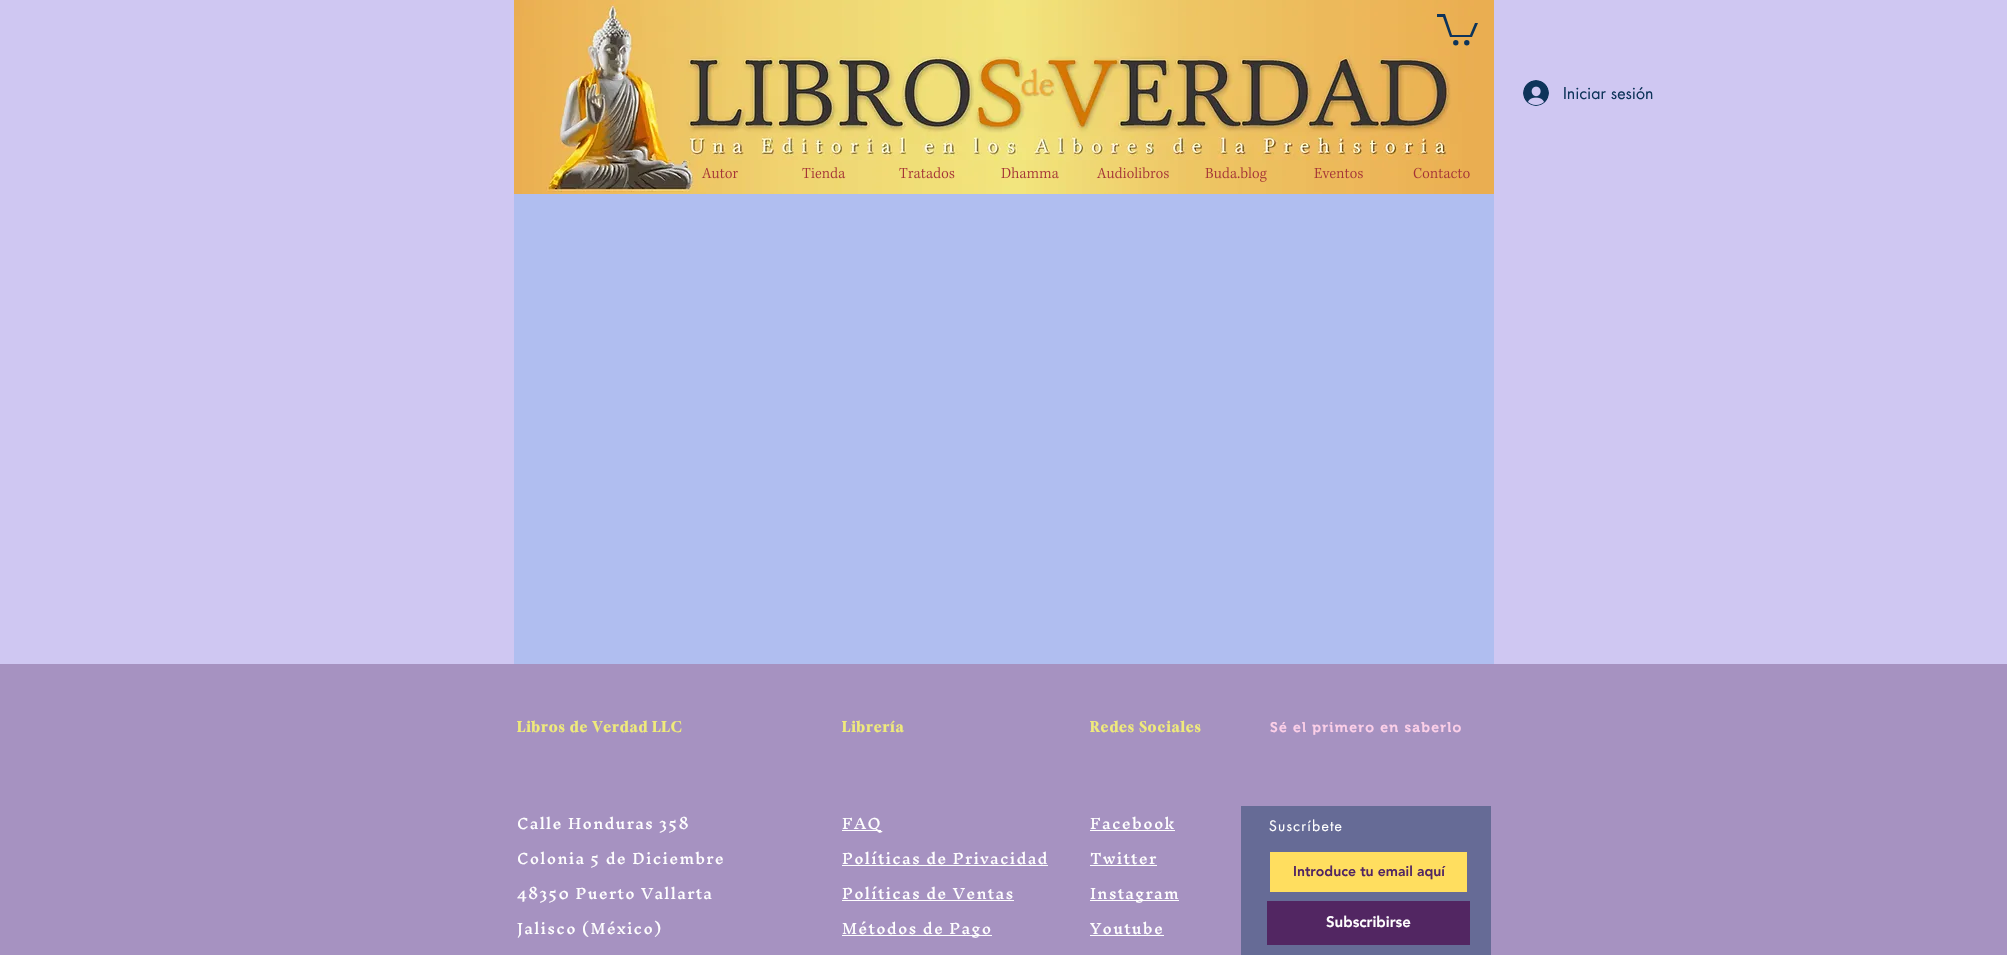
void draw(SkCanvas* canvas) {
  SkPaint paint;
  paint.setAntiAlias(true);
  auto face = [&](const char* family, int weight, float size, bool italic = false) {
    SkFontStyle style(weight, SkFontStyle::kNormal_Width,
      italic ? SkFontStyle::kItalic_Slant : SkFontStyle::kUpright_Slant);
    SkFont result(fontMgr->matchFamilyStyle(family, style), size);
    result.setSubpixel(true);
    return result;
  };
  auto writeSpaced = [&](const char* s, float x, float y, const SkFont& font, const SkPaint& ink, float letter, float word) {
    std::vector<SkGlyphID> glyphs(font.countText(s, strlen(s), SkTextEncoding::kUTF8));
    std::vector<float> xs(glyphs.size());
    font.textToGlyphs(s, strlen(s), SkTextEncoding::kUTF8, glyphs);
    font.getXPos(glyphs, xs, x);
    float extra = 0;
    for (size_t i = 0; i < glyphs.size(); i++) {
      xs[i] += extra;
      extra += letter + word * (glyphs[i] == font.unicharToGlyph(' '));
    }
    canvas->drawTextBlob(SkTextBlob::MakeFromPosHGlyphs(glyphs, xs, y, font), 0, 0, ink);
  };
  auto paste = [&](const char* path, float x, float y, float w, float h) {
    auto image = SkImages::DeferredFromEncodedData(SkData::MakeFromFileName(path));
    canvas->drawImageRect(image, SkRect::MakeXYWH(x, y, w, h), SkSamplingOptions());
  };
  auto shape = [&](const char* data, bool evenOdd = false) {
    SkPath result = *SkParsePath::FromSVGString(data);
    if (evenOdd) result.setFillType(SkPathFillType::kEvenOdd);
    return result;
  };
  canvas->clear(0xffcfc7f2);
  paste("img/1.png", 514, 0, 980, 194);
  paint.setColor(0xff0e345a);
  canvas->drawPath(shape("M1478 23L1472 37H1450L1443 17H1437V14H1445L1452 35H1470L1475 23"), paint);
  canvas->drawCircle(1466.8f, 42.7f, 2.7f, paint);
  canvas->drawCircle(1455.8f, 42.7f, 2.7f, paint);
  paste("img/2.png", 701, 167, 37, 12);
  paste("img/3.png", 802, 167, 44, 12);
  paste("img/4.png", 899, 167, 56, 12);
  paste("img/5.png", 1001, 167, 58, 12);
  paste("img/6.png", 1096, 167, 73, 12);
  paste("img/7.png", 1205, 167, 62, 15);
  paste("img/8.png", 1314, 168, 49, 11);
  paste("img/9.png", 1413, 167, 57, 12);
  paste("img/10.png", 1523, 80, 26, 26);
  {
    const struct { float x, y, w, h; SkColor color; } items[] = {
      {514, 194, 980, 470, 0xffb0bef0},
      {0, 664, 2007, 291, 0xffa692c1},
      {842, 830, 39, 1, 0xffffffff},
      {842, 865, 206, 1, 0xffffffff},
      {842, 900, 172, 1, 0xffffffff},
      {842, 935, 150, 1, 0xffffffff},
      {1090, 830, 85, 1, 0xffffffff},
      {1090, 865, 67, 1, 0xffffffff},
      {1090, 900, 89, 1, 0xffffffff},
      {1090, 935, 74, 1, 0xffffffff},
      {1241, 806, 250, 149, 0xff666b96},
      {1270, 852, 197, 40, 0xffffde5f},
      {1267, 901, 203, 44, 0xff522662},
    };
    for (auto [x, y, w, h, color] : items) {
      paint.setColor(color);
      canvas->drawRect(SkRect::MakeXYWH(x, y, w, h), paint);
    }
  }
  auto f0 = face("futura", 400, 16);
  paint.setColor(0xff0e345a);
  canvas->drawString("Iniciar sesión", 1563, 99, f0, paint);
  auto f1 = face("Gloock", 700, 14);
  paint.setColor(0xffefea7b);
  {
    const struct { const char* s; float x, y; } items[] = {
      {"Libros de Verdad LLC", 517, 732},
      {"Librería", 842, 732},
      {"Redes Sociales", 1090, 732},
    };
    for (auto [s, x, y] : items) {
      writeSpaced(s, x, y, f1, paint, 1.25f, 0);
    }
  }
  auto f2 = face("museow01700", 600, 14);
  paint.setColor(0xfffccfe8);
  writeSpaced("Sé el primero en saberlo", 1270, 732, f2, paint, 1.25f, 0);
  auto f3 = face("Inknut Antiqua", 400, 14);
  paint.setColor(0xffffffff);
  {
    const struct { const char* s; float x, y; } items[] = {
      {"Calle Honduras 358", 517, 829},
      {"Colonia 5 de Diciembre", 517, 864},
      {"48350 Puerto Vallarta", 517, 899},
      {"Jalisco (México)", 517, 934},
      {"FAQ", 842, 829},
      {"Políticas de Privacidad", 842, 864},
      {"Políticas de Ventas", 842, 899},
      {"Métodos de Pago", 842, 934},
      {"Facebook", 1090, 829},
      {"Twitter", 1090, 864},
      {"Instagram", 1090, 899},
      {"Youtube", 1090, 934},
    };
    for (auto [s, x, y] : items) {
      writeSpaced(s, x, y, f3, paint, 1.25f, 0);
    }
  }
  auto f4 = face("futura", 400, 14);
  writeSpaced("Suscríbete", 1269, 831, f4, paint, 1.25f, 0);
  auto f5 = face("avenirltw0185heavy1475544", 900, 14);
  paint.setColor(0xff522662);
  canvas->drawString("Introduce tu email aquí", 1293, 876, f5, paint);
  auto f6 = face("avenirltw0185heavy1475544", 900, 15);
  paint.setColor(0xffffffff);
  canvas->drawString("Subscribirse", 1326, 927, f6, paint);
}
